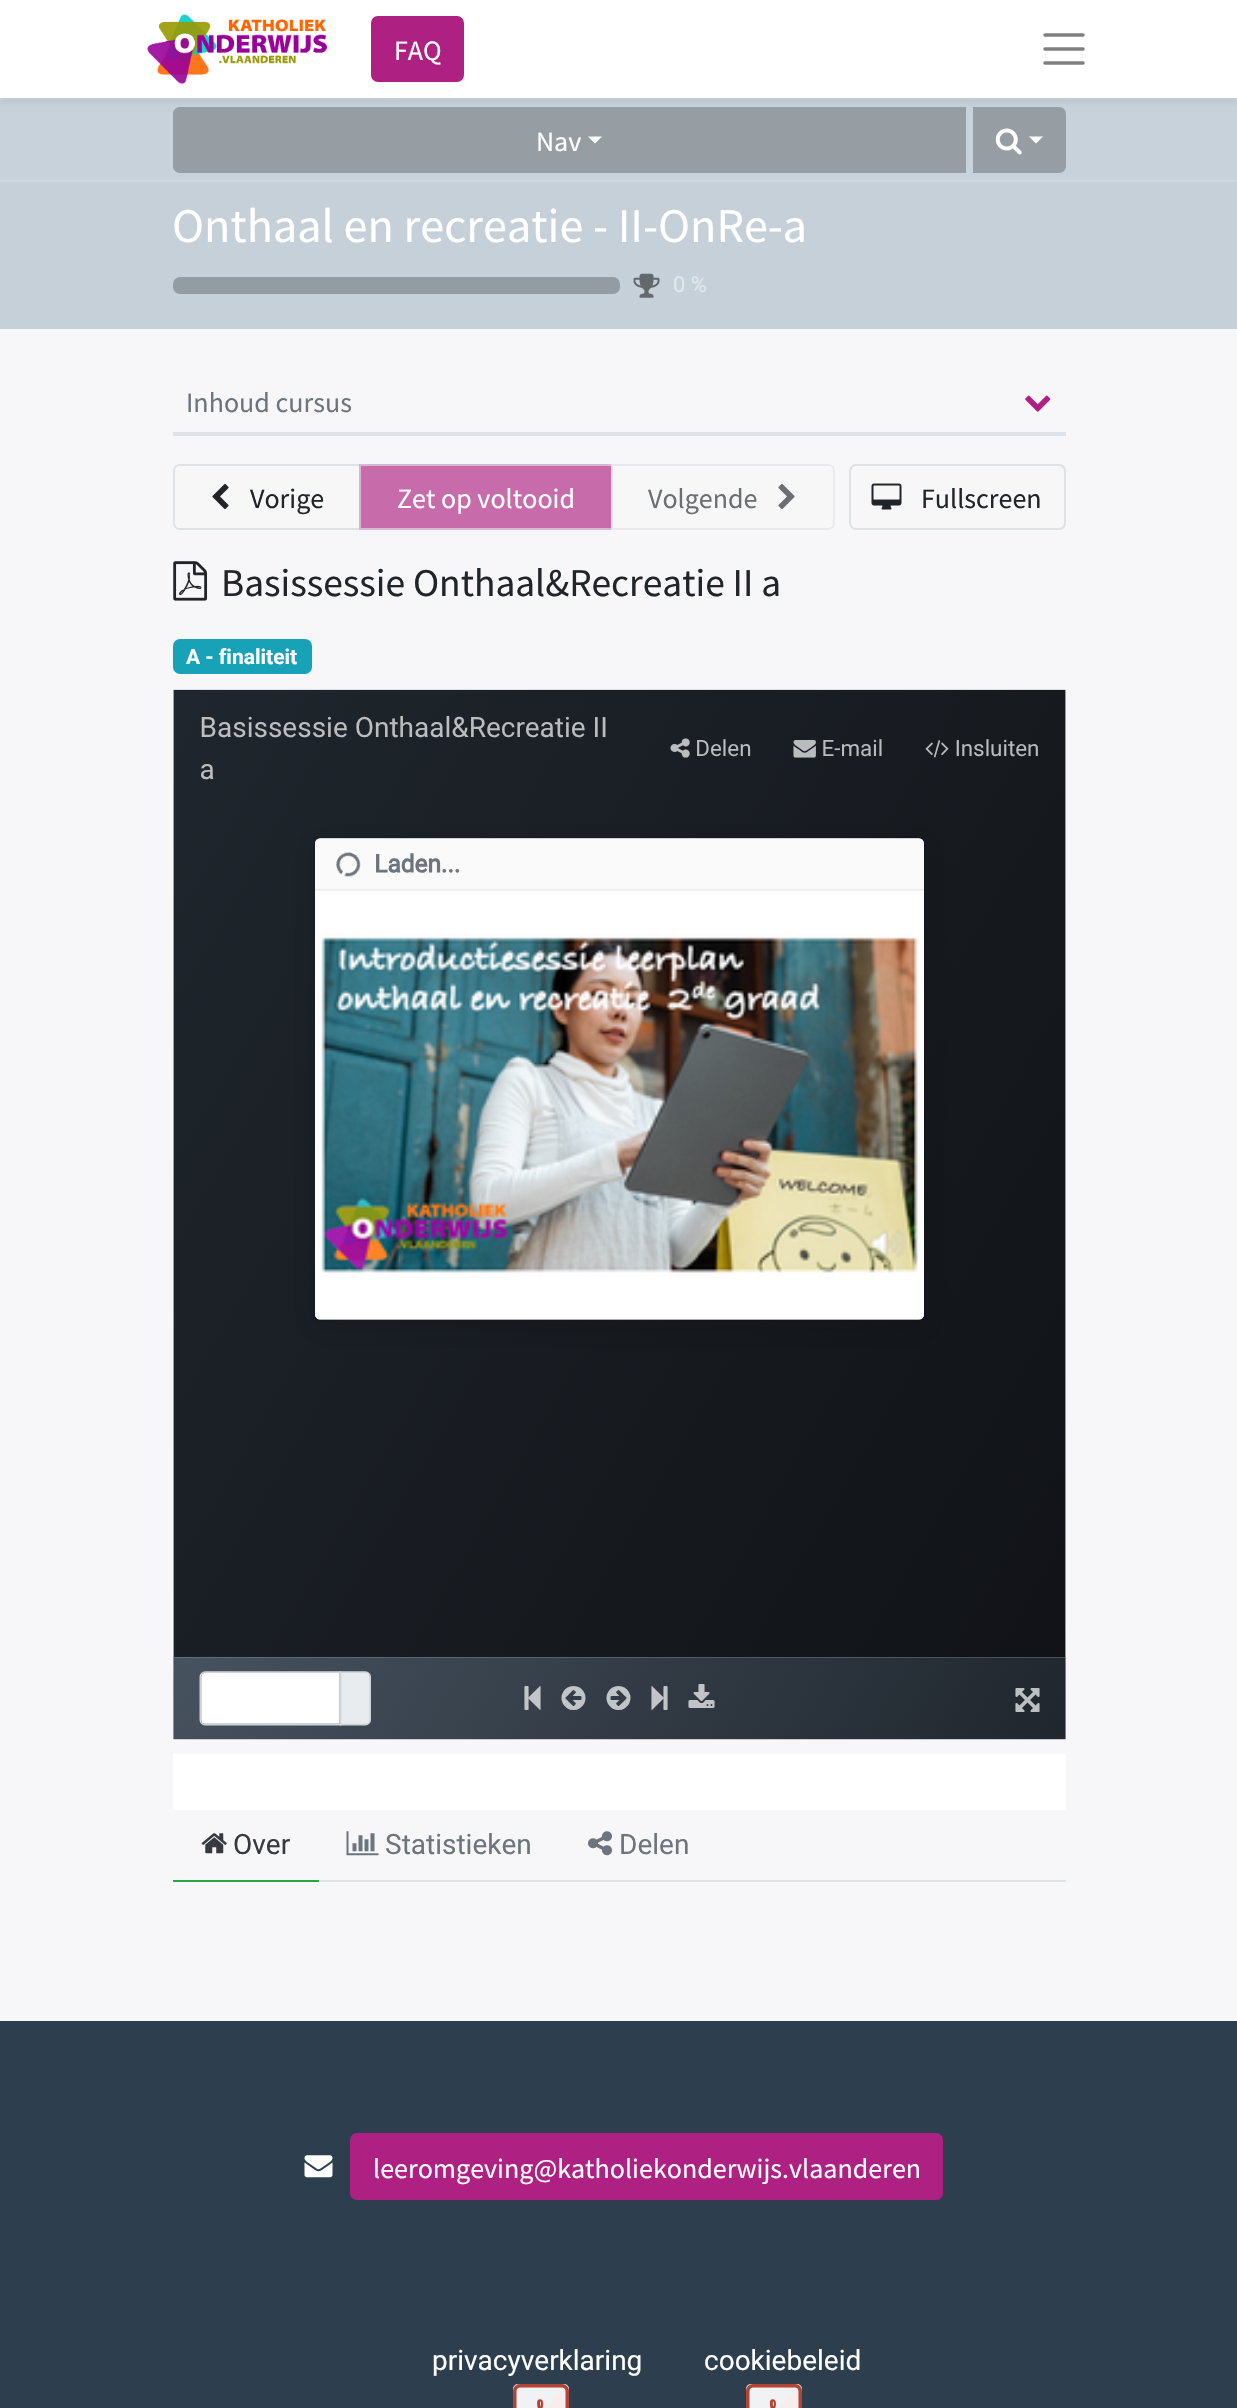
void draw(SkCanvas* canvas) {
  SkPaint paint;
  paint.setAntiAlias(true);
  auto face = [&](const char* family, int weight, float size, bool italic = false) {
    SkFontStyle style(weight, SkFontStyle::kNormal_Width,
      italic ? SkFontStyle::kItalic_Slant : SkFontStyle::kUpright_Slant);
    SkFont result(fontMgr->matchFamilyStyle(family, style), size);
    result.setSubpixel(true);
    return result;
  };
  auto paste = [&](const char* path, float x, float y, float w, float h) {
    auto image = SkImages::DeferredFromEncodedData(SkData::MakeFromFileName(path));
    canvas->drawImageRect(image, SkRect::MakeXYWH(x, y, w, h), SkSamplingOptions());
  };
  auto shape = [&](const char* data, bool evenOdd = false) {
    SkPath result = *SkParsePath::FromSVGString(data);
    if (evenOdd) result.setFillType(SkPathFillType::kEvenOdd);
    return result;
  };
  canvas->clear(0xfff7f7fa);
  paint.setColor(0xffc8d2db);
  canvas->drawRect(SkRect::MakeXYWH(0, 100, 1237, 80), paint);
  paint.setColor(0xffced7df);
  canvas->drawRect(SkRect::MakeXYWH(0, 98, 1237, 2), paint);
  paint.setColor(0xff969ea4);
  canvas->drawPath(shape("M180 107H966V173H180C176 173 173 170 173 166V114C173 110 176 107 180 107Z"), paint);
  canvas->drawPath(shape("M973 107H1059C1063 107 1066 110 1066 114V166C1066 170 1063 173 1059 173H973Z"), paint);
  paint.setColor(0x12000000);
  paint.setMaskFilter(SkMaskFilter::MakeBlur(kNormal_SkBlurStyle, 3.5f));
  canvas->drawRect(SkRect::MakeXYWH(0, 4, 1237, 98), paint);
  paint.setMaskFilter(nullptr);
  paint.setColor(0xffffffff);
  canvas->drawRect(SkRect::MakeXYWH(0, 0, 1237, 98), paint);
  paste("img/1.png", 147, 14, 180, 70);
  paint.setColor(0xffae2081);
  canvas->drawRoundRect(SkRect::MakeXYWH(372, 17, 91, 64), 6, 6, paint);
  paint.setStroke(true);
  paint.setStrokeWidth(2);
  canvas->drawRoundRect(SkRect::MakeXYWH(372, 17, 91, 64), 6, 6, paint);
  paint.setStrokeWidth(3.5f);
  paint.setStrokeCap(SkPaint::kRound_Cap);
  paint.setColor(0xff808080);
  canvas->drawPath(shape("M1045 35H1083M1045 49H1083M1045 63H1083"), paint);
  paint.setStroke(false);
  paint.setColor(0xffc5d0d9);
  canvas->drawRect(SkRect::MakeXYWH(0, 182, 1237, 147), paint);
  paint.setColor(0xffced7df);
  canvas->drawRect(SkRect::MakeXYWH(0, 180, 1237, 2), paint);
  paint.setColor(0xffffffff);
  canvas->drawPath(shape("M588 136.5H602L595 143.5Z"), paint);
  paste("img/2.png", 995, 128, 27, 27);
  canvas->drawPath(shape("M1029 136.5H1043L1036 143.5Z"), paint);
  paint.setColor(0xff949ca3);
  canvas->drawRoundRect(SkRect::MakeXYWH(173, 277, 447, 17), 7, 7, paint);
  paste("img/3.png", 633, 273, 27, 25);
  paint.setColor(0xffdee2e6);
  canvas->drawRect(SkRect::MakeXYWH(173, 432, 893, 4), paint);
  paste("img/4.png", 1025, 395, 26, 17);
  paint.setColor(0xfff7f7f7);
  canvas->drawPath(shape("M180 465H360V529H180C176.5 529 174 526.5 174 523V471C174 467.5 176.5 465 180 465Z"), paint);
  paint.setStroke(true);
  paint.setStrokeWidth(2);
  paint.setStrokeCap(SkPaint::kButt_Cap);
  paint.setColor(0xffdee2e6);
  canvas->drawPath(shape("M180 465H360V529H180C176.5 529 174 526.5 174 523V471C174 467.5 176.5 465 180 465Z"), paint);
  paste("img/5.png", 212, 483, 17, 26);
  paint.setStroke(false);
  paint.setColor(0xa6ae2081);
  canvas->drawRect(SkRect::MakeXYWH(359, 464, 254, 66), paint);
  paint.setStroke(true);
  paint.setColor(0xa6dee2e6);
  canvas->drawRect(SkRect::MakeXYWH(360, 465, 252, 64), paint);
  paint.setStroke(false);
  paint.setColor(0xa6f7f7f7);
  canvas->drawPath(shape("M611 464H828C832 464 835 467 835 471V523C835 527 832 530 828 530H611Z"), paint);
  paint.setStroke(true);
  paint.setColor(0xa6dee2e6);
  canvas->drawPath(shape("M612 465H828C831.5 465 834 467.5 834 471V523C834 526.5 831.5 529 828 529H612Z"), paint);
  paste("img/6.png", 778, 484, 17, 25);
  paint.setStroke(false);
  paint.setColor(0xfff7f7f7);
  canvas->drawRoundRect(SkRect::MakeXYWH(850, 465, 215, 64), 6, 6, paint);
  paint.setStroke(true);
  paint.setColor(0xffdee2e6);
  canvas->drawRoundRect(SkRect::MakeXYWH(850, 465, 215, 64), 6, 6, paint);
  paste("img/7.png", 871, 483, 31, 27);
  paste("img/8.png", 173, 561, 35, 40);
  paint.setStroke(false);
  paint.setColor(0xff17a2b8);
  canvas->drawRoundRect(SkRect::MakeXYWH(173, 639, 139, 35), 7, 7, paint);
  paste("img/9.png", 173, 689, 893, 1051);
  {
    const struct { float x, y, w, h; SkColor color; } items[] = {
      {173, 1754, 893, 56, 0xffffffff},
      {319, 1880, 747, 2, 0xffdee2e6},
      {173, 1880, 146, 2, 0xff28a745},
    };
    for (auto [x, y, w, h, color] : items) {
      paint.setColor(color);
      canvas->drawRect(SkRect::MakeXYWH(x, y, w, h), paint);
    }
  }
  paste("img/10.png", 201, 1833, 26, 21);
  paste("img/11.png", 346, 1831, 33, 25);
  paste("img/12.png", 588, 1831, 24, 25);
  paint.setColor(0xff2d3e4e);
  canvas->drawRect(SkRect::MakeXYWH(0, 2021, 1237, 387), paint);
  paste("img/13.png", 304, 2155, 29, 23);
  paint.setColor(0xffae2081);
  canvas->drawRoundRect(SkRect::MakeXYWH(351, 2134, 591, 65), 6, 6, paint);
  paint.setStroke(true);
  canvas->drawRoundRect(SkRect::MakeXYWH(351, 2134, 591, 65), 6, 6, paint);
  paste("img/14.png", 513, 2384, 56, 24);
  paste("img/15.png", 746, 2384, 56, 24);
  auto f0 = face("Source Sans Pro", 400, 28);
  paint.setStroke(false);
  paint.setColor(0xffffffff);
  canvas->drawString("FAQ", 394, 60, f0, paint);
  canvas->drawString("Nav", 536, 151, f0, paint);
  auto f1 = face("Source Sans Pro", 400, 48.25f);
  canvas->drawString("Onthaal en recreatie - II-OnRe-a", 172, 242, f1, paint);
  auto f2 = face("Roboto", 400, 22);
  paint.setColor(0xffe2e8ec);
  canvas->drawString("0 %", 673, 292, f2, paint);
  paint.setColor(0xff6c757d);
  canvas->drawString("Inhoud cursus", 186, 412, f0, paint);
  paint.setColor(0xff212529);
  canvas->drawString("Vorige", 250, 508, f0, paint);
  paint.setColor(0xffffffff);
  canvas->drawString("Zet op voltooid", 397, 508, f0, paint);
  paint.setColor(0xff6c6f72);
  canvas->drawString("Volgende", 648, 508, f0, paint);
  paint.setColor(0xff212529);
  canvas->drawString("Fullscreen", 921, 508, f0, paint);
  auto f3 = face("Source Sans Pro", 400, 39.4f);
  canvas->drawString("Basissessie Onthaal&Recreatie II a", 221, 596, f3, paint);
  auto f4 = face("Roboto", 700, 21);
  paint.setColor(0xffffffff);
  canvas->drawString("A - finaliteit", 186, 664, f4, paint);
  auto f5 = face("Roboto", 400, 28);
  paint.setColor(0xff343a40);
  canvas->drawString("Over", 233, 1854, f5, paint);
  paint.setColor(0xff6c757d);
  canvas->drawString("Statistieken", 385, 1854, f5, paint);
  canvas->drawString("Delen", 619, 1854, f5, paint);
  paint.setColor(0xffffffff);
  canvas->drawString("leeromgeving@katholiekonderwijs.vlaanderen", 373, 2178, f0, paint);
  canvas->drawString("privacyverklaring", 432, 2370, f5, paint);
  canvas->drawString("cookiebeleid", 704, 2370, f5, paint);
}
